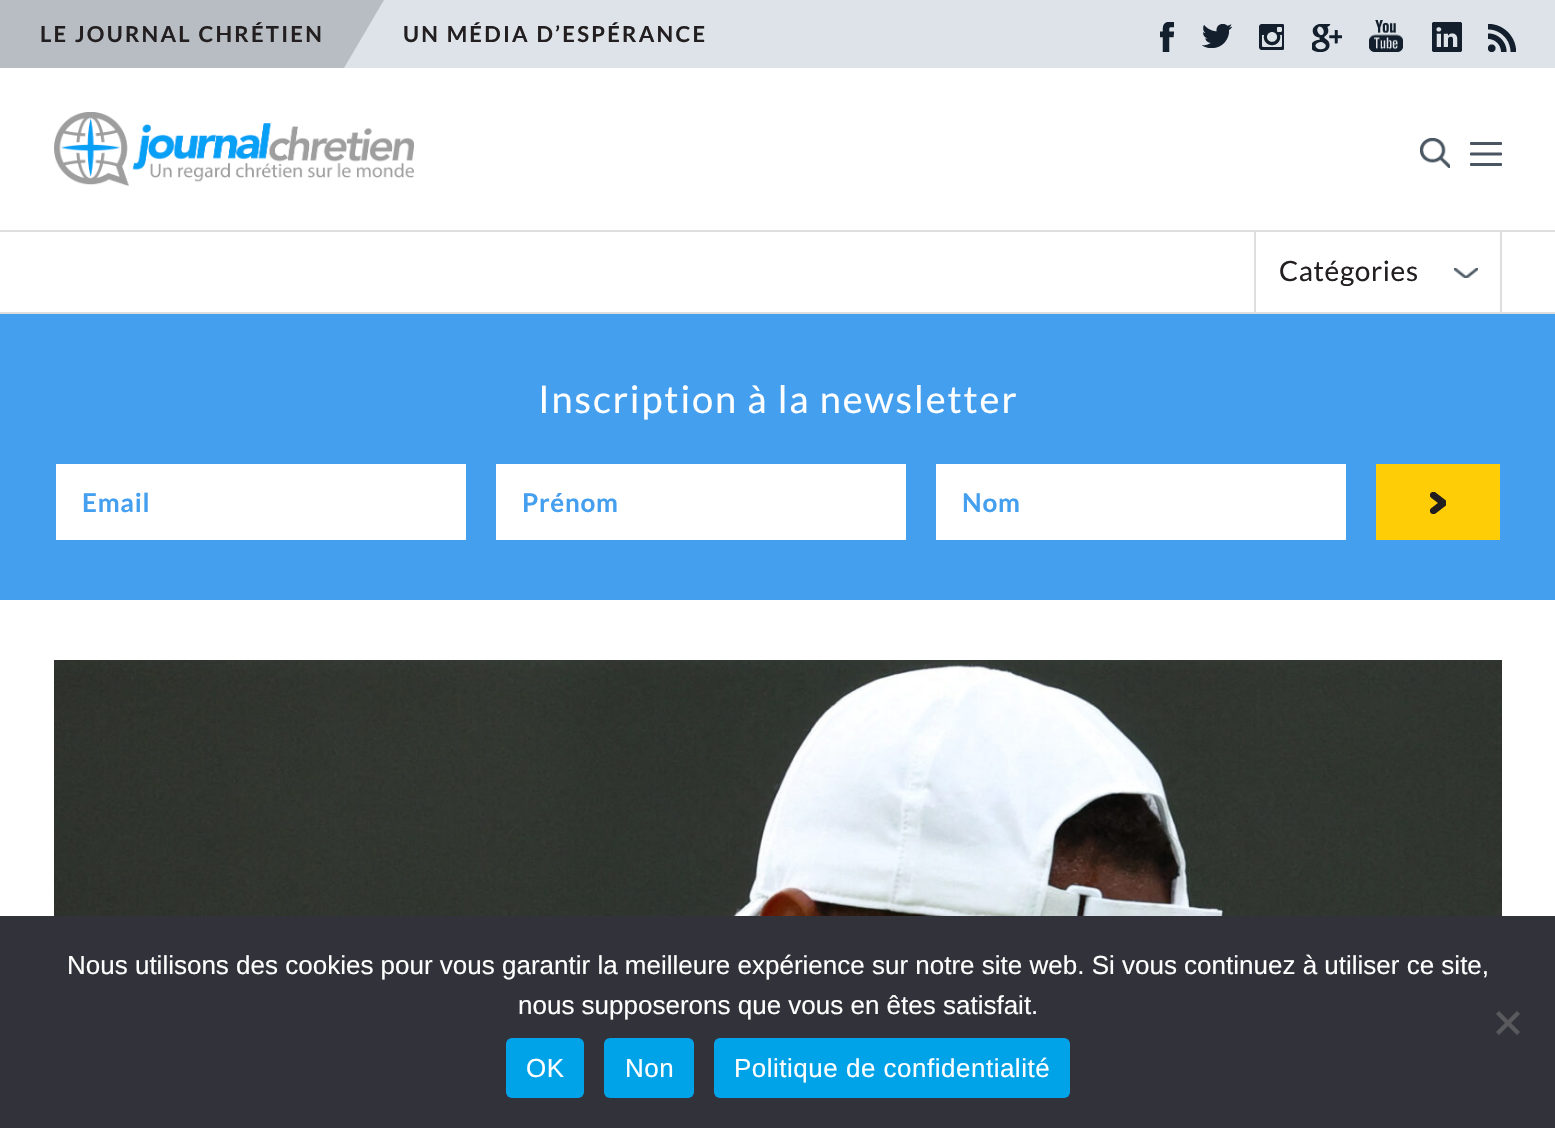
void draw(SkCanvas* canvas) {
  SkPaint paint;
  paint.setAntiAlias(true);
  auto face = [&](const char* family, int weight, float size, bool italic = false) {
    SkFontStyle style(weight, SkFontStyle::kNormal_Width,
      italic ? SkFontStyle::kItalic_Slant : SkFontStyle::kUpright_Slant);
    SkFont result(fontMgr->matchFamilyStyle(family, style), size);
    result.setSubpixel(true);
    return result;
  };
  auto writeSpaced = [&](const char* s, float x, float y, const SkFont& font, const SkPaint& ink, float letter, float word) {
    std::vector<SkGlyphID> glyphs(font.countText(s, strlen(s), SkTextEncoding::kUTF8));
    std::vector<float> xs(glyphs.size());
    font.textToGlyphs(s, strlen(s), SkTextEncoding::kUTF8, glyphs);
    font.getXPos(glyphs, xs, x);
    float extra = 0;
    for (size_t i = 0; i < glyphs.size(); i++) {
      xs[i] += extra;
      extra += letter + word * (glyphs[i] == font.unicharToGlyph(' '));
    }
    canvas->drawTextBlob(SkTextBlob::MakeFromPosHGlyphs(glyphs, xs, y, font), 0, 0, ink);
  };
  auto paste = [&](const char* path, float x, float y, float w, float h) {
    auto image = SkImages::DeferredFromEncodedData(SkData::MakeFromFileName(path));
    canvas->drawImageRect(image, SkRect::MakeXYWH(x, y, w, h), SkSamplingOptions());
  };
  auto shape = [&](const char* data, bool evenOdd = false) {
    SkPath result = *SkParsePath::FromSVGString(data);
    if (evenOdd) result.setFillType(SkPathFillType::kEvenOdd);
    return result;
  };
  canvas->clear(0xffffffff);
  paint.setColor(0xffdde3e8);
  canvas->drawRect(SkRect::MakeXYWH(344, 0, 1211, 68), paint);
  paint.setColor(0xffb7bdc2);
  canvas->drawRect(SkRect::MakeXYWH(0, 0, 344, 68), paint);
  canvas->drawPath(shape("M344 0H384L344 68Z"), paint);
  paste("img/1.png", 1160, 22, 14, 30);
  paste("img/2.png", 1202, 24, 30, 24);
  paste("img/3.png", 1259, 24, 25, 26);
  paste("img/4.png", 1312, 24, 30, 28);
  paste("img/5.png", 1369, 20, 34, 32);
  paste("img/6.png", 1432, 22, 30, 30);
  paste("img/7.png", 1488, 24, 28, 28);
  paste("img/8.png", 54, 112, 360, 74);
  paste("img/9.png", 1420, 138, 30, 30);
  paste("img/10.png", 1470, 142, 32, 24);
  {
    const struct { float x, y, w, h; SkColor color; } items[] = {
      {0, 230, 1555, 2, 0xffdedede},
      {0, 312, 1555, 2, 0xffdedede},
      {1500, 232, 2, 80, 0xffdedede},
      {1254, 232, 2, 80, 0xffdedede},
    };
    for (auto [x, y, w, h, color] : items) {
      paint.setColor(color);
      canvas->drawRect(SkRect::MakeXYWH(x, y, w, h), paint);
    }
  }
  paste("img/11.png", 1454, 268, 24, 10);
  {
    const struct { float x, y, w, h; SkColor color; } items[] = {
      {0, 314, 1555, 286, 0xff449fef},
      {56, 464, 410, 76, 0xffffffff},
      {496, 464, 410, 76, 0xffffffff},
      {936, 464, 410, 76, 0xffffffff},
      {1376, 464, 124, 76, 0xffffcd06},
    };
    for (auto [x, y, w, h, color] : items) {
      paint.setColor(color);
      canvas->drawRect(SkRect::MakeXYWH(x, y, w, h), paint);
    }
  }
  paste("img/12.png", 1430, 492, 16, 22);
  paste("img/13.png", 54, 660, 1448, 256);
  paint.setColor(0xff32323a);
  canvas->drawRect(SkRect::MakeXYWH(0, 916, 1555, 212), paint);
  paint.setColor(0xff59595d);
  canvas->drawPath(shape("M1517 1011L1520 1014L1499 1035L1496 1032Z"), paint);
  canvas->drawPath(shape("M1496 1014L1499 1011L1520 1032L1517 1035Z"), paint);
  paint.setColor(0xff00a2e8);
  canvas->drawRoundRect(SkRect::MakeXYWH(506, 1038, 78, 60), 6, 6, paint);
  canvas->drawRoundRect(SkRect::MakeXYWH(604, 1038, 90, 60), 6, 6, paint);
  canvas->drawRoundRect(SkRect::MakeXYWH(714, 1038, 356, 60), 6, 6, paint);
  auto f0 = face("Lato", 700, 22);
  paint.setColor(0xff231f20);
  writeSpaced("LE JOURNAL CHRÉTIEN", 40, 42, f0, paint, 2.25f, 0);
  writeSpaced("UN MÉDIA D’ESPÉRANCE", 403, 42, f0, paint, 2.25f, 0);
  auto f1 = face("Lato", 400, 28);
  writeSpaced("Catégories", 1279, 281, f1, paint, 0.6f, 0);
  auto f2 = face("Lato", 400, 38);
  paint.setColor(0xffffffff);
  writeSpaced("Inscription à la newsletter", 538, 413, f2, paint, 1.9f, 0);
  auto f3 = face("Lato", 700, 26);
  paint.setColor(0xff449fef);
  {
    const struct { const char* s; float x, y; } items[] = {
      {"Email", 82, 512},
      {"Prénom", 522, 512},
      {"Nom", 962, 512},
    };
    for (auto [s, x, y] : items) {
      writeSpaced(s, x, y, f3, paint, 0.75f, 0);
    }
  }
  auto f4 = face("Liberation Sans", 400, 26);
  paint.setColor(0xffffffff);
  canvas->drawString("Nous utilisons des cookies pour vous garantir la meilleure expérience sur notre site web. Si vous continuez à utiliser ce site,", 67, 974, f4, paint);
  canvas->drawString("nous supposerons que vous en êtes satisfait.", 518, 1014, f4, paint);
  {
    const struct { const char* s; float x, y; } items[] = {
      {"OK", 526, 1077},
      {"Non", 625, 1077},
      {"Politique de confidentialité", 734, 1077},
    };
    for (auto [s, x, y] : items) {
      writeSpaced(s, x, y, f4, paint, 0.5f, 0);
    }
  }
}
